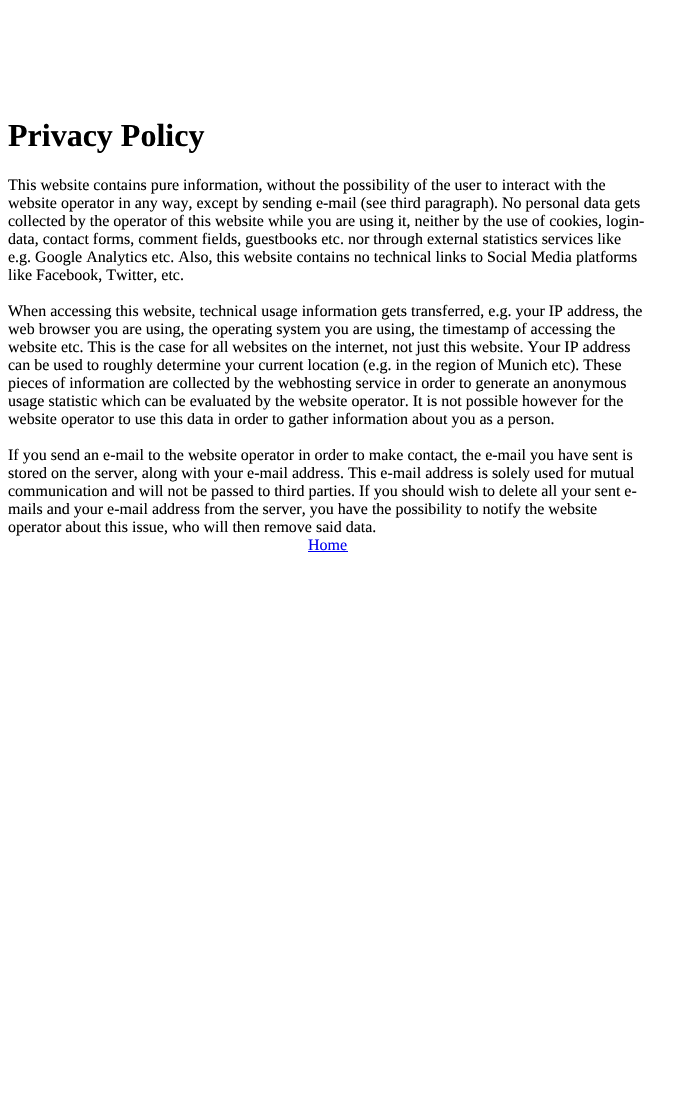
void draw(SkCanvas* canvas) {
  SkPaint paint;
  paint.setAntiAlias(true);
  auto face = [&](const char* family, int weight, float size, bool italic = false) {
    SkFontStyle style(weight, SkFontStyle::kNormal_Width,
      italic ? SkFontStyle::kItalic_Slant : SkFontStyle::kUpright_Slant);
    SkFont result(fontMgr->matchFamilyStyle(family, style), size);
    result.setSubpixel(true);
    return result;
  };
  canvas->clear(0xffffffff);
  paint.setColor(0xff0000ee);
  canvas->drawRect(SkRect::MakeXYWH(308, 551, 40, 1), paint);
  auto f0 = face("Liberation Serif", 700, 32);
  paint.setColor(0xff000000);
  canvas->drawString("Privacy Policy", 8, 146, f0, paint);
  auto f1 = face("Liberation Serif", 400, 16);
  {
    const struct { const char* s; float x, y; } items[] = {
      {"This website contains pure information, without the possibility of the user to interact with the", 8, 190},
      {"website operator in any way, except by sending e-mail (see third paragraph). No personal data gets", 8, 208},
      {"collected by the operator of this website while you are using it, neither by the use of cookies, login-", 8, 226},
      {"data, contact forms, comment fields, guestbooks etc. nor through external statistics services like", 8, 244},
      {"e.g. Google Analytics etc. Also, this website contains no technical links to Social Media platforms", 8, 262},
      {"like Facebook, Twitter, etc.", 8, 280},
      {"When accessing this website, technical usage information gets transferred, e.g. your IP address, the", 8, 316},
      {"web browser you are using, the operating system you are using, the timestamp of accessing the", 8, 334},
      {"website etc. This is the case for all websites on the internet, not just this website. Your IP address", 8, 352},
      {"can be used to roughly determine your current location (e.g. in the region of Munich etc). These", 8, 370},
      {"pieces of information are collected by the webhosting service in order to generate an anonymous", 8, 388},
      {"usage statistic which can be evaluated by the website operator. It is not possible however for the", 8, 406},
      {"website operator to use this data in order to gather information about you as a person.", 8, 424},
      {"If you send an e-mail to the website operator in order to make contact, the e-mail you have sent is", 8, 460},
      {"stored on the server, along with your e-mail address. This e-mail address is solely used for mutual", 8, 478},
      {"communication and will not be passed to third parties. If you should wish to delete all your sent e-", 8, 496},
      {"mails and your e-mail address from the server, you have the possibility to notify the website", 8, 514},
      {"operator about this issue, who will then remove said data.", 8, 532},
    };
    for (auto [s, x, y] : items) {
      canvas->drawString(s, x, y, f1, paint);
    }
  }
  paint.setColor(0xff0000ee);
  canvas->drawString("Home", 308, 550, f1, paint);
}
